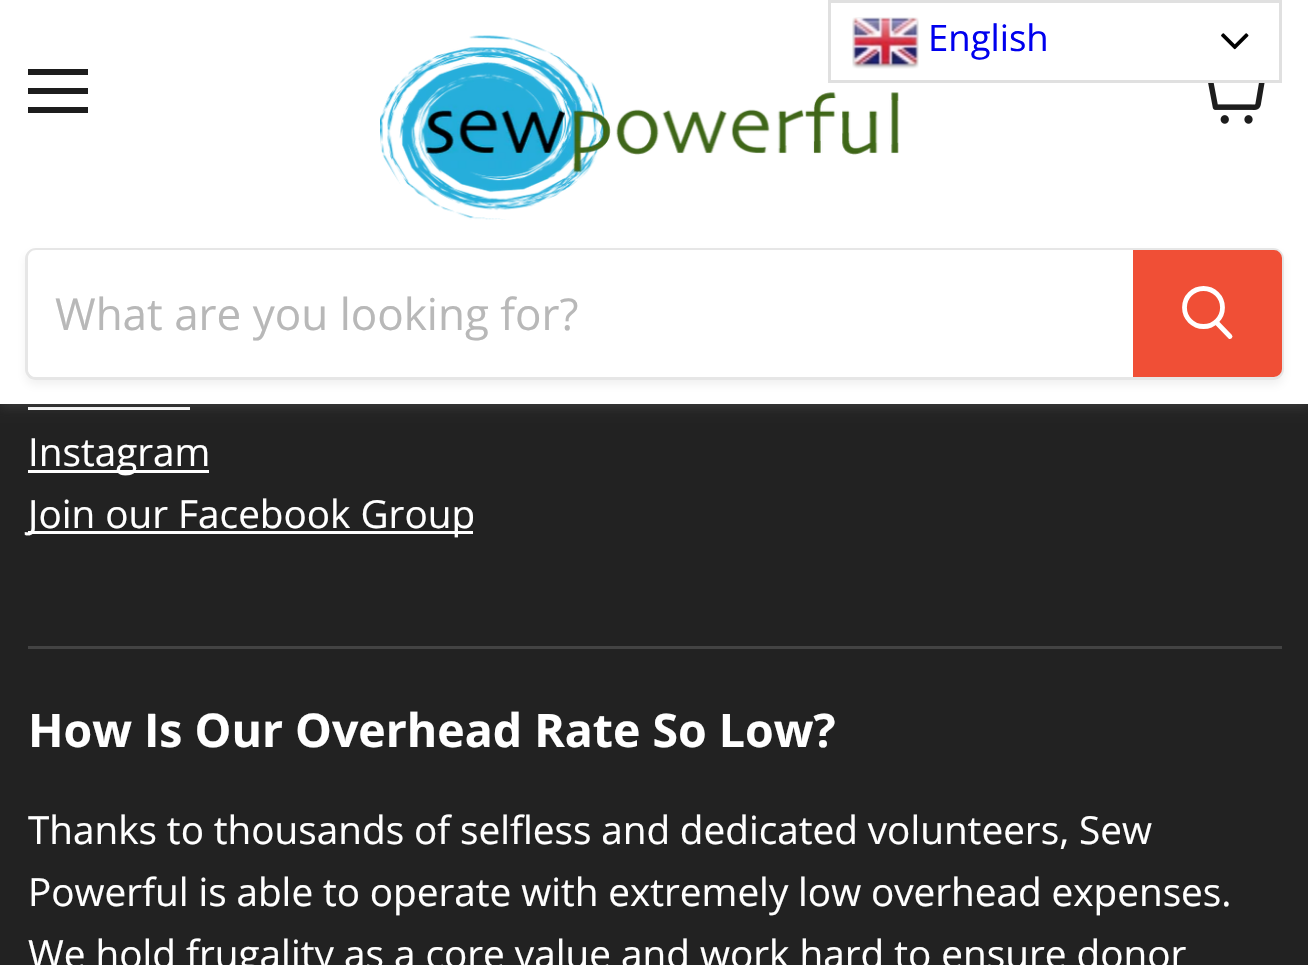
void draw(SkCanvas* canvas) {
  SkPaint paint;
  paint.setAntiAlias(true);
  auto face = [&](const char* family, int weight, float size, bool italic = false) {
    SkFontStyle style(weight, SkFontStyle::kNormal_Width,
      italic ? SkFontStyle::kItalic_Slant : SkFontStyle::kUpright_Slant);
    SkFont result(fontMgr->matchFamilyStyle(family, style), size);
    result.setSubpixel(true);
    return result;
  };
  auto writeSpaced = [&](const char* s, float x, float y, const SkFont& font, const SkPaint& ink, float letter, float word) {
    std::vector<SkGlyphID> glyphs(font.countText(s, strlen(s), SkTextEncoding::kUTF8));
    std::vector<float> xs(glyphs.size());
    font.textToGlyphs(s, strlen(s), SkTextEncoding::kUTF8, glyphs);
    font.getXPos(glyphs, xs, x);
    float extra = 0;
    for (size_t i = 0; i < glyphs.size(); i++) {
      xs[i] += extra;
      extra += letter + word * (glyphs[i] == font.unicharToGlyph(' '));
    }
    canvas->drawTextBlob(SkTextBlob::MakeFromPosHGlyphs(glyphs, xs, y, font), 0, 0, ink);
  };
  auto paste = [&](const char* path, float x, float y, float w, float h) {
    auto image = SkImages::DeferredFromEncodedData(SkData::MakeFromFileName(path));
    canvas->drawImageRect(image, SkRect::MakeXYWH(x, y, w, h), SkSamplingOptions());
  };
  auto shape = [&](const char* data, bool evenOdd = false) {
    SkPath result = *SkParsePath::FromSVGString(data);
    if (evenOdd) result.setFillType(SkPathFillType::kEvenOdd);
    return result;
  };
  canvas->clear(0xff222222);
  paint.setColor(0xffffffff);
  canvas->drawRect(SkRect::MakeXYWH(28, 407, 162, 3), paint);
  paint.setColor(0x40808080);
  paint.setMaskFilter(SkMaskFilter::MakeBlur(kNormal_SkBlurStyle, 5.5f));
  canvas->drawRect(SkRect::MakeXYWH(0, 3, 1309, 404), paint);
  paint.setMaskFilter(nullptr);
  paint.setColor(0xffffffff);
  canvas->drawRect(SkRect::MakeXYWH(0, 0, 1308, 404), paint);
  paste("img/4.png", 380, 35, 519, 185);
  paint.setStroke(true);
  paint.setStrokeWidth(3);
  paint.setColor(0xffe0e0e0);
  canvas->drawRect(SkRect::MakeXYWH(829.5f, 1.5f, 451, 80), paint);
  paste("img/1.png", 852, 17, 67, 52);
  paste("img/2.png", 1221, 33, 28, 17);
  paint.setStroke(false);
  {
    const struct { float x, y, w, h; SkColor color; } items[] = {
      {28, 69, 60, 6, 0xff1d1d1d},
      {28, 88, 60, 6, 0xff1d1d1d},
      {28, 107, 60, 6, 0xff1d1d1d},
    };
    for (auto [x, y, w, h, color] : items) {
      paint.setColor(color);
      canvas->drawRect(SkRect::MakeXYWH(x, y, w, h), paint);
    }
  }
  paste("img/3.png", 1208, 83, 57, 41);
  canvas->save();
  canvas->clipPath(shape("M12 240H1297V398H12ZM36 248H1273C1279 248 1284 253 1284 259V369C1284 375 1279 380 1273 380H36C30 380 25 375 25 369V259C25 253 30 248 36 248Z", true), true);
  paint.setColor(0x1c808080);
  paint.setMaskFilter(SkMaskFilter::MakeBlur(kNormal_SkBlurStyle, 4));
  canvas->drawRoundRect(SkRect::MakeXYWH(25, 253, 1259, 132), 11, 11, paint);
  paint.setMaskFilter(nullptr);
  canvas->restore();
  paint.setStroke(true);
  paint.setColor(0x33808080);
  canvas->drawRoundRect(SkRect::MakeXYWH(26.5f, 249.5f, 1256, 129), 9.5f, 9.5f, paint);
  paint.setStroke(false);
  paint.setColor(0xffffffff);
  canvas->drawPath(shape("M36 250H1133V377H36C31.5 377 28 373.5 28 369V258C28 253.5 31.5 250 36 250Z"), paint);
  paint.setColor(0xfff04f36);
  canvas->drawPath(shape("M1134.5 251.5H1274C1277.5 251.5 1280.5 254.5 1280.5 258V369C1280.5 372.5 1277.5 375.5 1274 375.5H1134.5Z"), paint);
  paint.setStroke(true);
  canvas->drawPath(shape("M1134.5 251.5H1274C1277.5 251.5 1280.5 254.5 1280.5 258V369C1280.5 372.5 1277.5 375.5 1274 375.5H1134.5Z"), paint);
  paint.setStrokeWidth(4.8f);
  paint.setStrokeCap(SkPaint::kRound_Cap);
  paint.setColor(0xffffffff);
  canvas->drawPath(shape("M1230 336.5L1217 323"), paint);
  paint.setStrokeCap(SkPaint::kButt_Cap);
  canvas->drawCircle(1203.5f, 307.5f, 19, paint);
  paint.setStroke(false);
  {
    const struct { float x, y, w, h; SkColor color; } items[] = {
      {28, 646, 1254, 3, 0xff434343},
      {28, 470, 181, 3, 0xffffffff},
      {28, 531, 445, 3, 0xffffffff},
    };
    for (auto [x, y, w, h, color] : items) {
      paint.setColor(color);
      canvas->drawRect(SkRect::MakeXYWH(x, y, w, h), paint);
    }
  }
  auto f0 = face("Open Sans", 400, 36.5f);
  paint.setColor(0xff0000ee);
  canvas->drawString("English", 928, 51, f0, paint);
  auto f1 = face("Open Sans", 400, 44);
  paint.setColor(0xffb8b8b8);
  canvas->drawString("What are you looking for?", 55, 330, f1, paint);
  auto f2 = face("Open Sans", 400, 38.7f);
  paint.setColor(0xffffffff);
  canvas->drawString("Instagram", 28, 466, f2, paint);
  canvas->drawString("Join our Facebook Group", 28, 528, f2, paint);
  auto f3 = face("Open Sans", 700, 46.4f);
  canvas->drawString("How Is Our Overhead Rate So Low?", 28, 747, f3, paint);
  writeSpaced("Thanks to thousands of selfless and dedicated volunteers, Sew", 28, 844, f2, paint, 0, -0.25f);
  writeSpaced("Powerful is able to operate with extremely low overhead expenses.", 28, 906, f2, paint, 0, -0.25f);
  canvas->drawString("We hold frugality as a core value and work hard to ensure donor", 28, 968, f2, paint);
}
